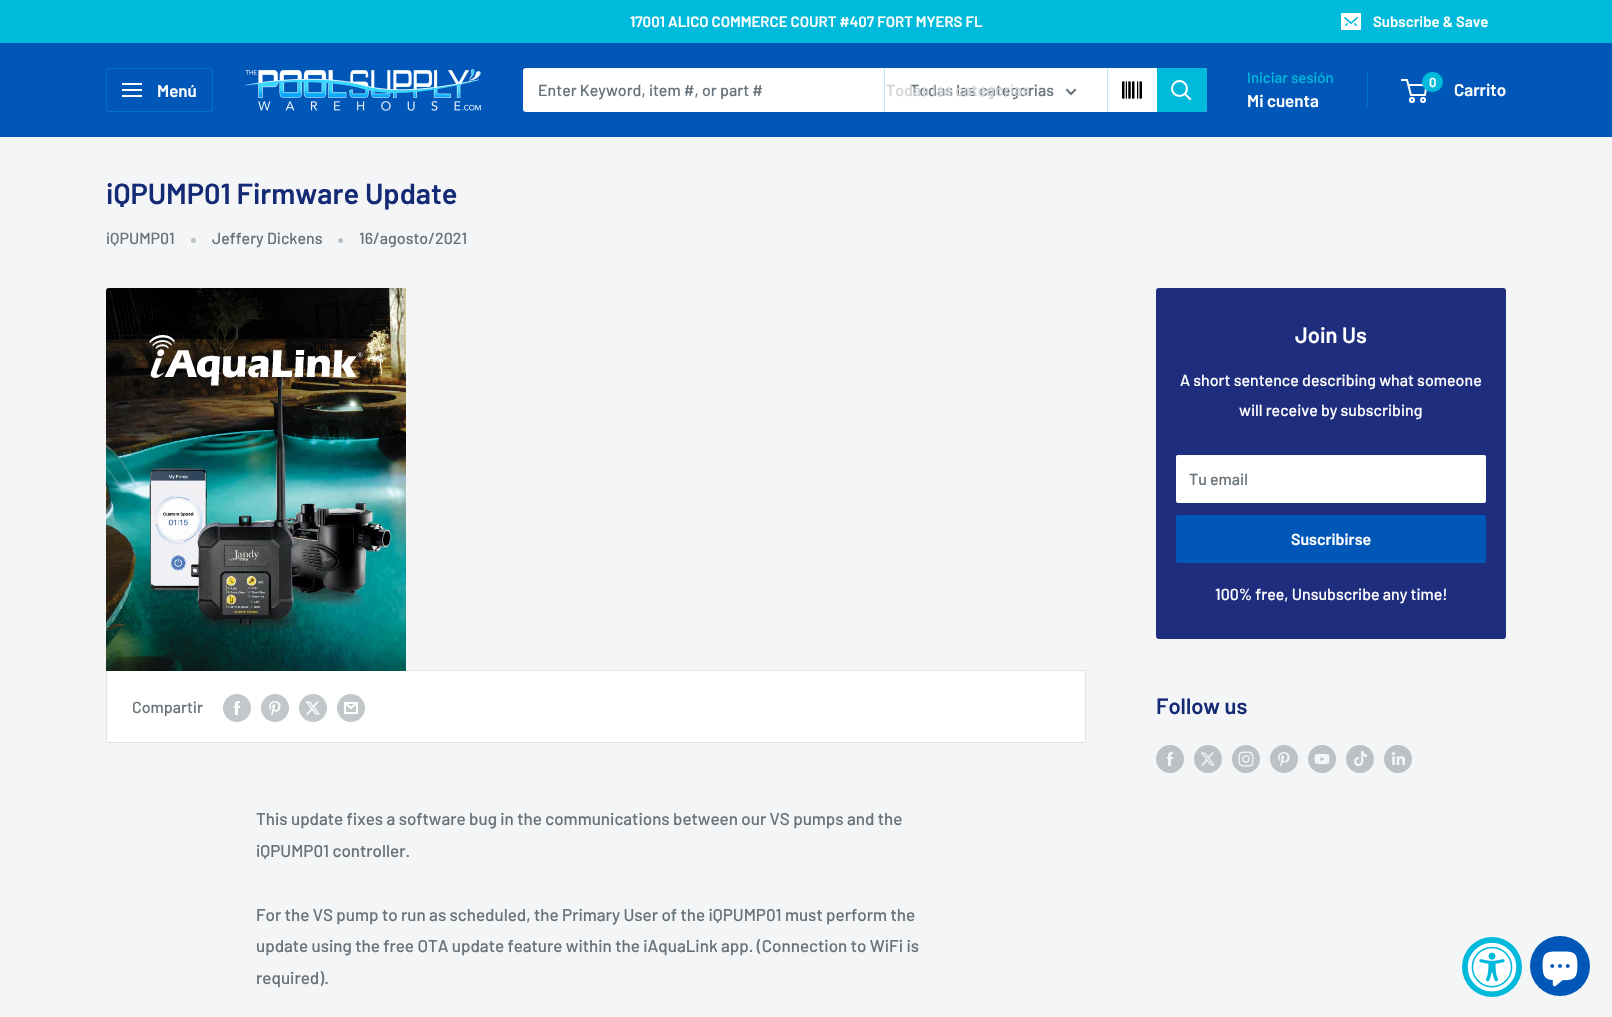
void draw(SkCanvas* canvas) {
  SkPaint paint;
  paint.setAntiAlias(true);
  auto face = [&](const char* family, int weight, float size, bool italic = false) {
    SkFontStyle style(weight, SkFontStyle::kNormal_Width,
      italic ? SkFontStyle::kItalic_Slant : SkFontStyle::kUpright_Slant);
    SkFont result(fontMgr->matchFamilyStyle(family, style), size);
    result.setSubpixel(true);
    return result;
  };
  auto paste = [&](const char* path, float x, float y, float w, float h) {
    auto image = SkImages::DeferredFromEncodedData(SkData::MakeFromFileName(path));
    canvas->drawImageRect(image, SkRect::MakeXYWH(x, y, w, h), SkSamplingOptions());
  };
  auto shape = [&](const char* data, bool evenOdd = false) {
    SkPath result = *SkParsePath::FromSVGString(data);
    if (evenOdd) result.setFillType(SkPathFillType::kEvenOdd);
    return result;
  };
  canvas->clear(0xfff3f5f6);
  paint.setColor(0xff00badb);
  canvas->drawRect(SkRect::MakeXYWH(0, 0, 1612, 43), paint);
  paste("img/1.png", 1341, 13, 20, 17);
  paint.setColor(0xff0057b8);
  canvas->drawRect(SkRect::MakeXYWH(0, 43, 1612, 94), paint);
  paint.setStroke(true);
  paint.setStrokeWidth(1);
  paint.setColor(0xff0075c3);
  canvas->drawRoundRect(SkRect::MakeXYWH(106.5f, 68.5f, 106, 43), 2.5f, 2.5f, paint);
  paste("img/2.png", 122, 83, 20, 14);
  paste("img/3.png", 245, 69, 236, 42);
  paint.setStroke(false);
  paint.setColor(0xffffffff);
  canvas->drawRoundRect(SkRect::MakeXYWH(523, 68, 684, 44), 3, 3, paint);
  paint.setColor(0xffb3eaf4);
  canvas->drawRect(SkRect::MakeXYWH(884, 68, 1, 44), paint);
  paint.setStroke(true);
  paint.setStrokeWidth(2);
  paint.setStrokeCap(SkPaint::kSquare_Cap);
  paint.setColor(0xff677279);
  canvas->drawPath(shape("M1075 90L1071 94L1067 90"), paint);
  paint.setStroke(false);
  paint.setColor(0xffb3eaf4);
  canvas->drawRect(SkRect::MakeXYWH(1107, 68, 1, 44), paint);
  paste("img/4.png", 1122, 81, 20, 18);
  paint.setColor(0xff00badb);
  canvas->drawPath(shape("M1157 68H1204C1205.5 68 1207 69.5 1207 71V109C1207 110.5 1205.5 112 1204 112H1157Z"), paint);
  paint.setStroke(true);
  paint.setColor(0xffffffff);
  canvas->drawPath(shape("M1190 99L1185 94"), paint);
  paint.setStrokeCap(SkPaint::kButt_Cap);
  canvas->drawCircle(1179.5f, 88.5f, 7.5f, paint);
  paint.setStroke(false);
  paint.setColor(0xff0075c3);
  canvas->drawRect(SkRect::MakeXYWH(1367, 73, 1, 34), paint);
  paint.setStroke(true);
  paint.setColor(0xffffffff);
  canvas->drawCircle(1412, 100, 2, paint);
  canvas->drawCircle(1423, 100, 2, paint);
  canvas->drawPath(shape("M1408.5 85H1426.5L1425 95H1411L1407 80H1401"), paint);
  paint.setStroke(false);
  paint.setColor(0xff00badb);
  canvas->drawRoundRect(SkRect::MakeXYWH(1422, 72, 21, 20), 10, 10, paint);
  paint.setColor(0xffbbc1c4);
  canvas->drawCircle(193.5f, 240.5f, 2.5f, paint);
  canvas->drawCircle(340.5f, 240.5f, 2.5f, paint);
  paint.setColor(0xff1e2d7d);
  canvas->drawRoundRect(SkRect::MakeXYWH(1156, 288, 350, 351), 3, 3, paint);
  paint.setColor(0xffffffff);
  canvas->drawRoundRect(SkRect::MakeXYWH(1176, 455, 310, 48), 2, 2, paint);
  paint.setColor(0x40e1e3e4);
  canvas->drawPath(shape("M1178 456H1484C1485 456 1486 457 1486 458C1486 457 1486 455 1484 455H1177L1176 456V458C1176 457 1177 456 1178 456Z"), paint);
  paint.setColor(0xff0057b8);
  canvas->drawRoundRect(SkRect::MakeXYWH(1176, 515, 310, 48), 2, 2, paint);
  paste("img/5.png", 1156, 745, 28, 28);
  paste("img/6.png", 1194, 745, 28, 28);
  paste("img/7.png", 1232, 745, 28, 28);
  paste("img/8.png", 1270, 745, 28, 28);
  paste("img/9.png", 1308, 745, 28, 28);
  paste("img/10.png", 1346, 745, 28, 28);
  paste("img/11.png", 1384, 745, 28, 28);
  paint.setColor(0xffffffff);
  canvas->drawPath(shape("M106.5 670.5H1085.5V740C1085.5 741.5 1084.5 742.5 1083 742.5H109C107.5 742.5 106.5 741.5 106.5 740Z"), paint);
  paint.setStroke(true);
  paint.setStrokeWidth(1);
  paint.setColor(0xffe1e3e4);
  canvas->drawPath(shape("M106.5 670.5H1085.5V740C1085.5 741.5 1084.5 742.5 1083 742.5H109C107.5 742.5 106.5 741.5 106.5 740Z"), paint);
  paste("img/12.png", 106, 288, 300, 383);
  paste("img/13.png", 223, 694, 28, 28);
  paste("img/14.png", 261, 694, 28, 28);
  paste("img/15.png", 299, 694, 28, 28);
  paste("img/16.png", 337, 694, 28, 28);
  paint.setStroke(false);
  paint.setColor(0xff00badb);
  canvas->drawCircle(1492, 967, 30, paint);
  paste("img/17.png", 1467, 942, 50, 50);
  paint.setColor(0xff0057b8);
  canvas->drawCircle(1560, 966, 30, paint);
  paste("img/18.png", 1542, 951, 36, 36);
  auto f0 = face("Barlow", 600, 15);
  paint.setColor(0xffffffff);
  canvas->drawString("17001 ALICO COMMERCE COURT #407 FORT MYERS FL", 630, 27, f0, paint);
  canvas->drawString("Subscribe & Save", 1373, 27, f0, paint);
  auto f1 = face("Barlow", 600, 17);
  canvas->drawString("Menú", 157, 97, f1, paint);
  auto f2 = face("Barlow", 500, 16);
  paint.setColor(0xff677279);
  canvas->drawString("Enter Keyword, item #, or part #", 538, 96, f2, paint);
  canvas->drawString("Todas las categorias", 910, 96, f2, paint);
  paint.setColor(0xffcfd3d5);
  canvas->drawString("Todas las categorias", 886, 96, f2, paint);
  auto f3 = face("Barlow", 500, 15);
  paint.setColor(0xff00badb);
  canvas->drawString("Iniciar sesión", 1247, 83, f3, paint);
  paint.setColor(0xffffffff);
  canvas->drawString("Mi cuenta", 1247, 107, f1, paint);
  auto f4 = face("Barlow", 600, 13);
  canvas->drawString("0", 1429, 87, f4, paint);
  canvas->drawString("Carrito", 1454, 96, f1, paint);
  auto f5 = face("Barlow", 600, 29);
  paint.setColor(0xff142a75);
  canvas->drawString("iQPUMP01 Firmware Update", 106, 204, f5, paint);
  paint.setColor(0xff677279);
  {
    const struct { const char* s; float x, y; } items[] = {
      {"iQPUMP01", 106, 244},
      {"Jeffery Dickens", 212, 244},
      {"16/agosto/2021", 359, 244},
    };
    for (auto [s, x, y] : items) {
      canvas->drawString(s, x, y, f2, paint);
    }
  }
  auto f6 = face("Barlow", 600, 22);
  paint.setColor(0xffffffff);
  canvas->drawString("Join Us", 1295, 343, f6, paint);
  canvas->drawString("A short sentence describing what someone", 1180, 386, f2, paint);
  canvas->drawString("will receive by subscribing", 1239, 416, f2, paint);
  paint.setColor(0xff677279);
  canvas->drawString("Tu email", 1189, 485, f2, paint);
  auto f7 = face("Barlow", 600, 16);
  paint.setColor(0xffffffff);
  canvas->drawString("Suscribirse", 1291, 545, f7, paint);
  canvas->drawString("100% free, Unsubscribe any time!", 1215, 600, f2, paint);
  paint.setColor(0xff142a75);
  canvas->drawString("Follow us", 1156, 714, f6, paint);
  paint.setColor(0xff677279);
  canvas->drawString("Compartir", 132, 713, f2, paint);
  auto f8 = face("Barlow", 500, 17);
  {
    const struct { const char* s; float x, y; } items[] = {
      {"This update fixes a software bug in the communications between our VS pumps and the", 256, 825},
      {"iQPUMP01 controller.", 256, 857},
      {"For the VS pump to run as scheduled, the Primary User of the iQPUMP01 must perform the", 256, 921},
      {"update using the free OTA update feature within the iAquaLink app. (Connection to WiFi is", 256, 952},
      {"required).", 256, 984},
    };
    for (auto [s, x, y] : items) {
      canvas->drawString(s, x, y, f8, paint);
    }
  }
}
